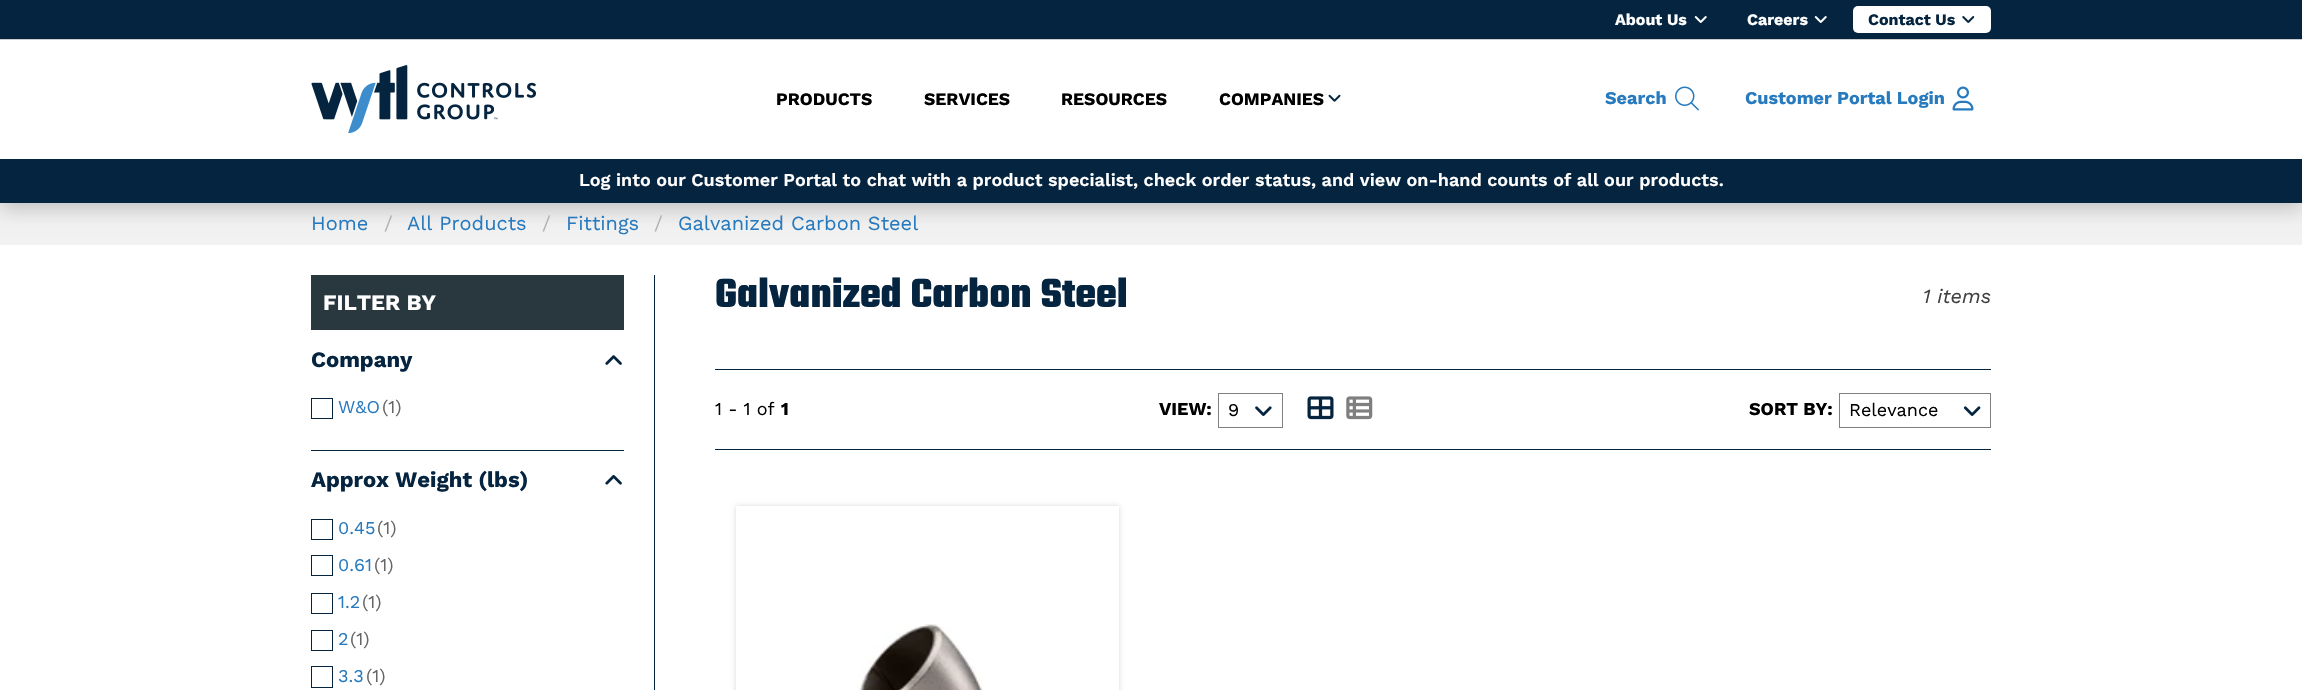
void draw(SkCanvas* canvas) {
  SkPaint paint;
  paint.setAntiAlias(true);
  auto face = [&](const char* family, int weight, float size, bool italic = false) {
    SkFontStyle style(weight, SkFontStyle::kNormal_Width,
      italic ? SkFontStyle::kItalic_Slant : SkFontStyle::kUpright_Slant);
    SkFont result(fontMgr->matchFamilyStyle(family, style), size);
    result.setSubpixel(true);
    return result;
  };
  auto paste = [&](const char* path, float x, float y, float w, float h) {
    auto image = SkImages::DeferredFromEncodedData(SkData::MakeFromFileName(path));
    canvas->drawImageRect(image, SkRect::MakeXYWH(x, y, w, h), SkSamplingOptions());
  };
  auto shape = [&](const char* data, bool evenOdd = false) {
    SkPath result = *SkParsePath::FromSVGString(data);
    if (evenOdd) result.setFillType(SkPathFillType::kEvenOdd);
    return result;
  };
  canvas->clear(0xffffffff);
  paint.setColor(0x33000000);
  paint.setMaskFilter(SkMaskFilter::MakeBlur(kNormal_SkBlurStyle, 9.5f));
  canvas->drawRect(SkRect::MakeXYWH(0, 6, 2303, 203), paint);
  paint.setMaskFilter(nullptr);
  {
    const struct { float x, y, w, h; SkColor color; } items[] = {
      {0, 40, 2302, 119, 0xffffffff},
      {0, 0, 2302, 39, 0xff052440},
      {0, 39, 2302, 1, 0xffcccccc},
    };
    for (auto [x, y, w, h, color] : items) {
      paint.setColor(color);
      canvas->drawRect(SkRect::MakeXYWH(x, y, w, h), paint);
    }
  }
  paste("img/1.png", 1694, 16, 13, 7);
  paste("img/1.png", 1814, 16, 13, 7);
  paint.setColor(0xffffffff);
  canvas->drawRoundRect(SkRect::MakeXYWH(1853, 6, 138, 27), 5, 5, paint);
  paste("img/2.png", 1962, 16, 13, 7);
  paste("img/3.png", 311, 65, 225, 68);
  paste("img/4.png", 1328, 94, 13, 8);
  paste("img/5.png", 1675, 86, 24, 25);
  paste("img/6.png", 1952, 86, 22, 25);
  {
    const struct { float x, y, w, h; SkColor color; } items[] = {
      {0, 159, 2302, 44, 0xff052440},
      {0, 203, 2302, 42, 0x0d000000},
      {654, 275, 1, 415, 0xff052440},
      {311, 275, 313, 55, 0xff29373e},
    };
    for (auto [x, y, w, h, color] : items) {
      paint.setColor(color);
      canvas->drawRect(SkRect::MakeXYWH(x, y, w, h), paint);
    }
  }
  paste("img/7.png", 605, 355, 17, 10);
  paint.setStroke(true);
  paint.setStrokeWidth(1);
  paint.setColor(0xff052440);
  canvas->drawRect(SkRect::MakeXYWH(311.5f, 398.5f, 21, 20), paint);
  paint.setStroke(false);
  canvas->drawRect(SkRect::MakeXYWH(311, 450, 313, 1), paint);
  paste("img/8.png", 605, 475, 17, 10);
  paint.setStroke(true);
  canvas->drawRect(SkRect::MakeXYWH(311.5f, 519.5f, 21, 20), paint);
  canvas->drawRect(SkRect::MakeXYWH(311.5f, 555.5f, 21, 20), paint);
  canvas->drawRect(SkRect::MakeXYWH(311.5f, 593.5f, 21, 20), paint);
  canvas->drawRect(SkRect::MakeXYWH(311.5f, 630.5f, 21, 20), paint);
  canvas->drawRect(SkRect::MakeXYWH(311.5f, 666.5f, 21, 21), paint);
  paint.setStroke(false);
  canvas->drawRect(SkRect::MakeXYWH(715, 369, 1276, 1), paint);
  canvas->drawRect(SkRect::MakeXYWH(715, 449, 1276, 1), paint);
  paste("img/9.png", 1255, 406, 17, 10);
  paint.setStroke(true);
  paint.setColor(0xff808080);
  canvas->drawRect(SkRect::MakeXYWH(1218.5f, 393.5f, 64, 34), paint);
  paste("img/10.png", 1307, 396, 27, 24);
  paste("img/11.png", 1346, 396, 27, 24);
  paste("img/12.png", 1963, 406, 18, 10);
  canvas->drawRect(SkRect::MakeXYWH(1839.5f, 393.5f, 151, 34), paint);
  canvas->save();
  canvas->clipPath(shape("M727 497H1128V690H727ZM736 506H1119V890H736Z", true), true);
  paint.setStroke(false);
  paint.setColor(0x26000000);
  paint.setMaskFilter(SkMaskFilter::MakeBlur(kNormal_SkBlurStyle, 2.5f));
  canvas->drawRect(SkRect::MakeXYWH(736, 506, 383, 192), paint);
  paint.setMaskFilter(nullptr);
  canvas->restore();
  paste("img/13.png", 857, 623, 126, 67);
  auto f0 = face("Work Sans", 700, 16);
  paint.setColor(0xffffffff);
  canvas->drawString("About Us", 1615, 25, f0, paint);
  canvas->drawString("Careers", 1747, 25, f0, paint);
  paint.setColor(0xff052440);
  canvas->drawString("Contact Us", 1868, 25, f0, paint);
  auto f1 = face("Work Sans", 700, 17.5f);
  paint.setColor(0xff000000);
  {
    const struct { const char* s; float x, y; } items[] = {
      {"PRODUCTS", 776, 105},
      {"SERVICES", 924, 105},
      {"RESOURCES", 1061, 105},
      {"COMPANIES", 1219, 105},
    };
    for (auto [s, x, y] : items) {
      canvas->drawString(s, x, y, f1, paint);
    }
  }
  auto f2 = face("Work Sans", 700, 18);
  paint.setColor(0xff277abe);
  canvas->drawString("Search", 1605, 104, f2, paint);
  canvas->drawString("Customer Portal Login", 1745, 104, f2, paint);
  auto f3 = face("Work Sans", 600, 18);
  paint.setColor(0xffffffff);
  canvas->drawString("Log into our Customer Portal to chat with a product specialist, check order status, and view on-hand counts of all our products.", 579, 186, f3, paint);
  auto f4 = face("Work Sans", 400, 20);
  paint.setColor(0xff277abe);
  canvas->drawString("Home", 311, 230, f4, paint);
  paint.setColor(0xffb5b5b5);
  canvas->drawString("/", 384, 230, f4, paint);
  paint.setColor(0xff277abe);
  canvas->drawString("All Products", 407, 230, f4, paint);
  paint.setColor(0xffb5b5b5);
  canvas->drawString("/", 542, 230, f4, paint);
  paint.setColor(0xff277abe);
  canvas->drawString("Fittings", 566, 230, f4, paint);
  paint.setColor(0xffb5b5b5);
  canvas->drawString("/", 654, 230, f4, paint);
  paint.setColor(0xff277abe);
  canvas->drawString("Galvanized Carbon Steel", 678, 230, f4, paint);
  auto f5 = face("Work Sans", 700, 22);
  paint.setColor(0xffffffff);
  canvas->drawString("FILTER BY", 323, 310, f5, paint);
  paint.setColor(0xff052440);
  canvas->drawString("Company", 311, 367, f5, paint);
  auto f6 = face("Work Sans", 400, 18);
  paint.setColor(0xff277abe);
  canvas->drawString("W&O", 338, 413, f6, paint);
  paint.setColor(0xff666666);
  canvas->drawString("(1)", 382, 413, f6, paint);
  paint.setColor(0xff052440);
  canvas->drawString("Approx Weight (lbs)", 311, 487, f5, paint);
  paint.setColor(0xff277abe);
  canvas->drawString("0.45", 338, 534, f6, paint);
  paint.setColor(0xff666666);
  canvas->drawString("(1)", 377, 534, f6, paint);
  paint.setColor(0xff277abe);
  canvas->drawString("0.61", 338, 571, f6, paint);
  paint.setColor(0xff666666);
  canvas->drawString("(1)", 374, 571, f6, paint);
  paint.setColor(0xff277abe);
  canvas->drawString("1.2", 338, 608, f6, paint);
  paint.setColor(0xff666666);
  canvas->drawString("(1)", 362, 608, f6, paint);
  paint.setColor(0xff277abe);
  canvas->drawString("2", 338, 645, f6, paint);
  paint.setColor(0xff666666);
  canvas->drawString("(1)", 350, 645, f6, paint);
  paint.setColor(0xff277abe);
  canvas->drawString("3.3", 338, 682, f6, paint);
  paint.setColor(0xff666666);
  canvas->drawString("(1)", 366, 682, f6, paint);
  auto f7 = face("Teko", 700, 44);
  paint.setColor(0xff052440);
  canvas->drawString("Galvanized Carbon Steel", 715, 307, f7, paint);
  auto f8 = face("Work Sans", 400, 20, true);
  paint.setColor(0xff404040);
  canvas->drawString("1 items", 1923, 303, f8, paint);
  paint.setColor(0xff000000);
  canvas->drawString("1 - 1 of", 715, 415, f6, paint);
  canvas->drawString("1", 781, 415, f2, paint);
  canvas->drawString("VIEW:", 1159, 415, f2, paint);
  canvas->drawString("9", 1228, 416, f6, paint);
  canvas->drawString("SORT BY:", 1749, 415, f2, paint);
  canvas->drawString("Relevance", 1849, 416, f6, paint);
}
